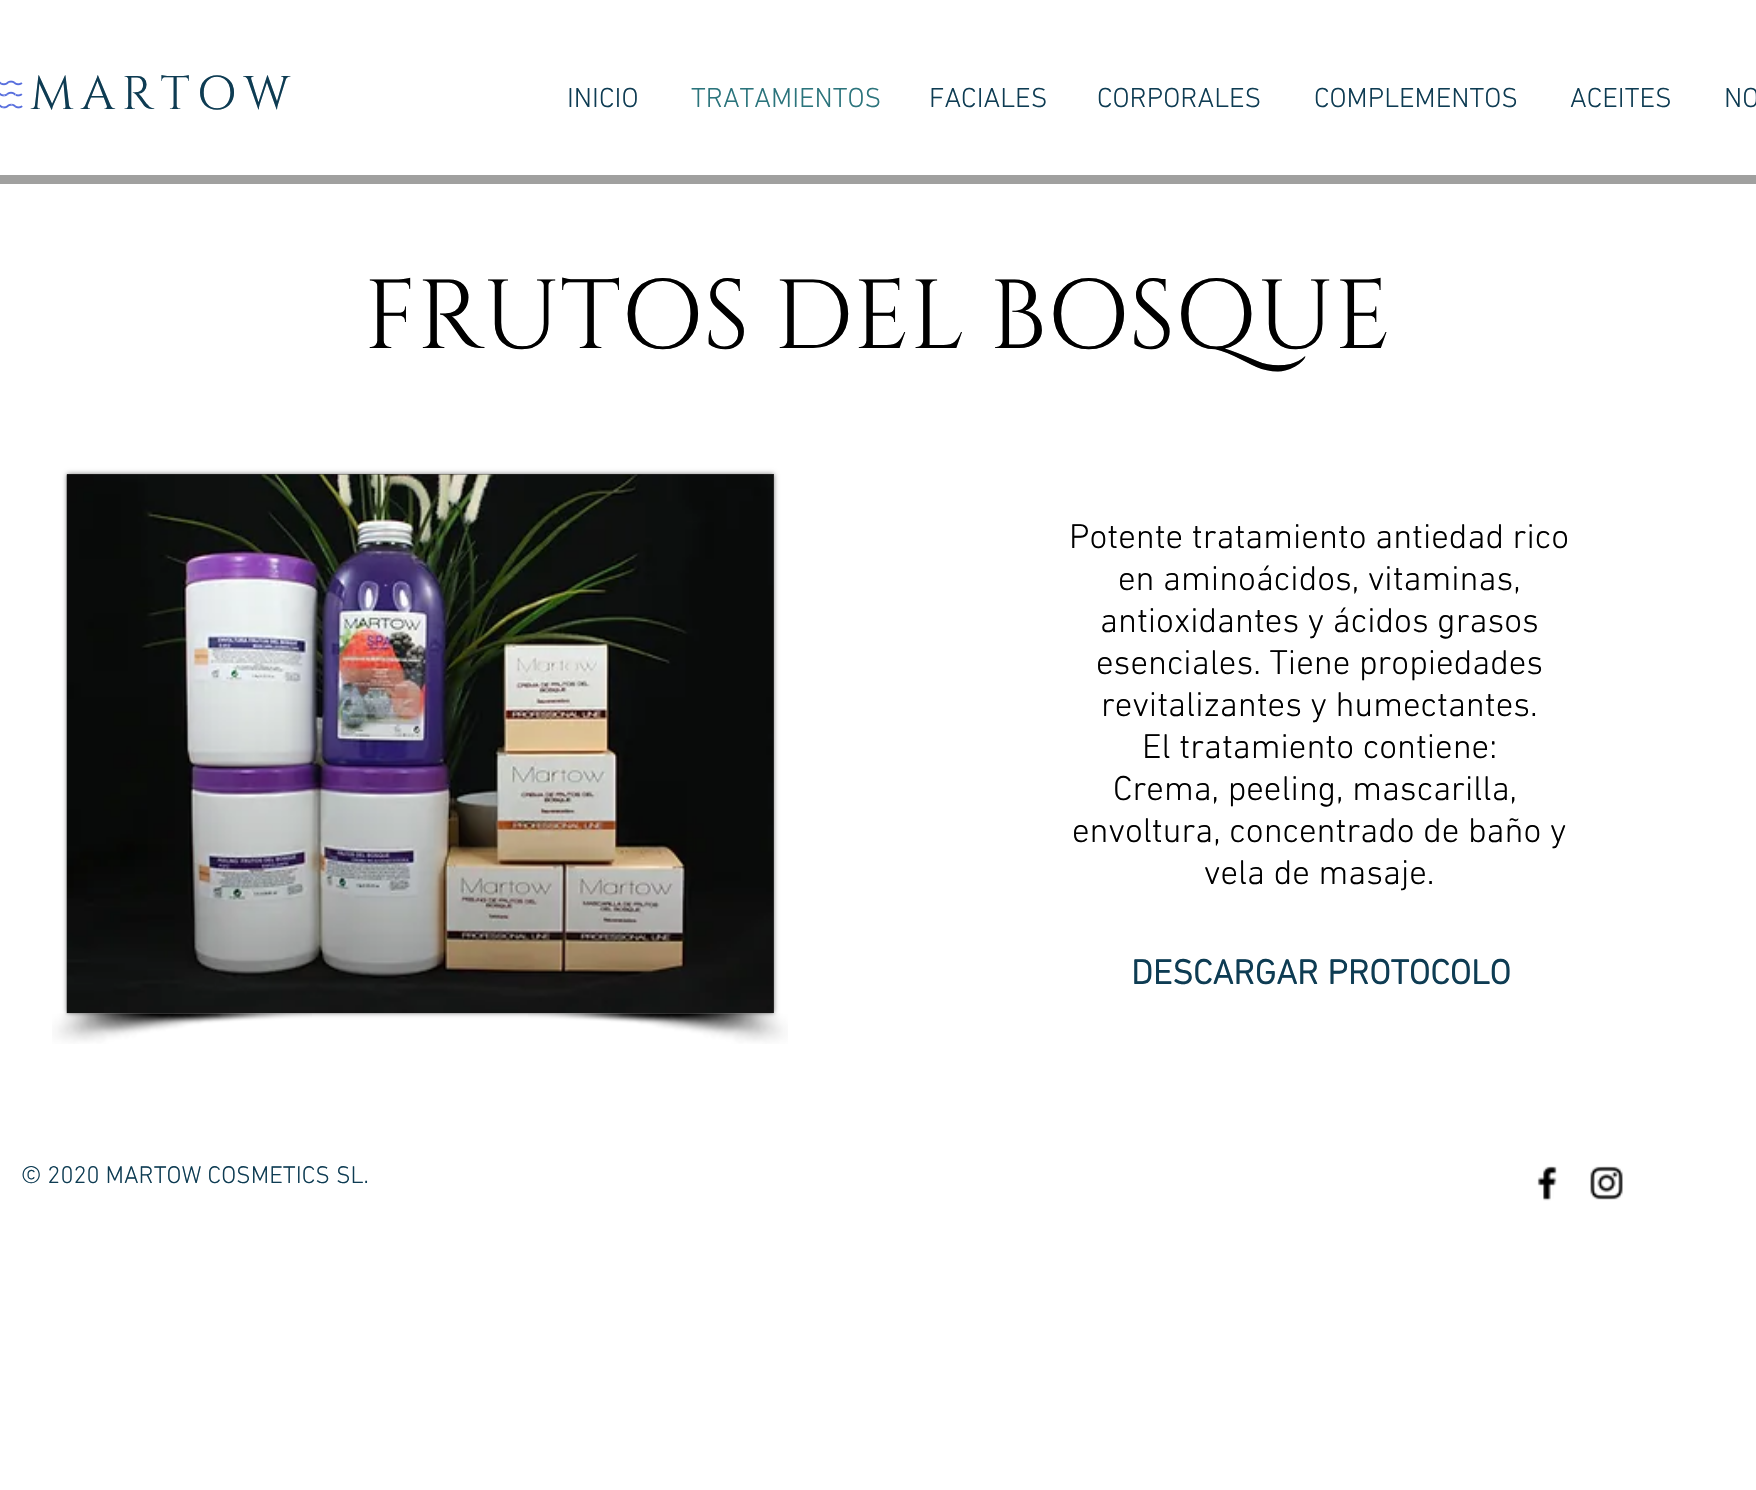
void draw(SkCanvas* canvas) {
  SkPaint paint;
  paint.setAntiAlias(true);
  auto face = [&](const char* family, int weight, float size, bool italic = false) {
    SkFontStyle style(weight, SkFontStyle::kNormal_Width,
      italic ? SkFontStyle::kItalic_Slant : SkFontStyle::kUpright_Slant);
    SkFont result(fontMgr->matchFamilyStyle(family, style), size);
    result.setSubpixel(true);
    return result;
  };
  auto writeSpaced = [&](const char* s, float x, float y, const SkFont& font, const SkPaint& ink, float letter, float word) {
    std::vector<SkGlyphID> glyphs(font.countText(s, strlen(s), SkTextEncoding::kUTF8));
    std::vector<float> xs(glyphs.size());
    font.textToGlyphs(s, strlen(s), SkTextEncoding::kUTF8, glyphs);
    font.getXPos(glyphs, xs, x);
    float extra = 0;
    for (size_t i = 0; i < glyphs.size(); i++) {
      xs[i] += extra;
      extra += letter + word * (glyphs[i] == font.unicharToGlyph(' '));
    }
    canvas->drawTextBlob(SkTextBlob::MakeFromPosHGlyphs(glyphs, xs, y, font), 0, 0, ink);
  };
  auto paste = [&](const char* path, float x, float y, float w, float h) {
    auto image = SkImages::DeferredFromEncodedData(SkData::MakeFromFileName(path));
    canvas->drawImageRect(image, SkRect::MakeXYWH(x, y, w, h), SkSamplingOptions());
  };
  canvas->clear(0xffffffff);
  paste("img/1.png", 0, 80, 23, 29);
  paint.setColor(0xffa0a09f);
  canvas->drawRect(SkRect::MakeXYWH(0, 175, 1756, 9), paint);
  paint.setColor(0x80000000);
  paint.setMaskFilter(SkMaskFilter::MakeBlur(kNormal_SkBlurStyle, 2.5f));
  canvas->drawRect(SkRect::MakeXYWH(67, 474, 707, 539), paint);
  paint.setMaskFilter(nullptr);
  paint.setColor(0xff2f2e2e);
  canvas->drawRect(SkRect::MakeXYWH(67, 474, 707, 539), paint);
  paste("img/2.png", 66, 474, 708, 540);
  paste("img/3.png", 52, 1013, 260, 31);
  paste("img/4.png", 528, 1013, 260, 31);
  paste("img/5.png", 1537, 1166, 20, 35);
  paste("img/6.png", 1590, 1166, 33, 34);
  auto f0 = face("Cinzel", 400, 47.25f);
  paint.setColor(0xff0e3c53);
  writeSpaced("MARTOW", 30, 109, f0, paint, 7, 0);
  auto f1 = face("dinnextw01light", 300, 28);
  canvas->drawString("INICIO", 567, 107, f1, paint);
  paint.setColor(0xff2b747c);
  canvas->drawString("TRATAMIENTOS", 691, 107, f1, paint);
  paint.setColor(0xff0e3c53);
  {
    const struct { const char* s; float x, y; } items[] = {
      {"FACIALES", 929, 107},
      {"CORPORALES", 1097, 107},
      {"COMPLEMENTOS", 1314, 107},
      {"ACEITES", 1570, 107},
      {"NO", 1724, 107},
    };
    for (auto [s, x, y] : items) {
      canvas->drawString(s, x, y, f1, paint);
    }
  }
  auto f2 = face("Cinzel", 400, 98);
  paint.setColor(0xff000000);
  canvas->drawString("FRUTOS DEL BOSQUE", 364, 348, f2, paint);
  auto f3 = face("dinnextw01light", 300, 35);
  {
    const struct { const char* s; float x, y; } items[] = {
      {"Potente tratamiento antiedad rico", 1069, 548},
      {"en aminoácidos, vitaminas,", 1118, 590},
      {"antioxidantes y ácidos grasos", 1100, 632},
      {"esenciales. Tiene propiedades", 1096, 674},
      {"revitalizantes y humectantes.", 1101, 716},
      {"El tratamiento contiene:", 1142, 758},
      {"Crema, peeling, mascarilla,", 1113, 800},
      {"envoltura, concentrado de baño y", 1072, 842},
      {"vela de masaje.", 1204, 884},
    };
    for (auto [s, x, y] : items) {
      canvas->drawString(s, x, y, f3, paint);
    }
  }
  auto f4 = face("dinnextw01light", 700, 35);
  paint.setColor(0xff0e3c53);
  canvas->drawString("DESCARGAR PROTOCOLO", 1131, 984, f4, paint);
  auto f5 = face("dinnextw01light", 300, 24.5f);
  canvas->drawString("© 2020 MARTOW COSMETICS SL.", 21, 1183, f5, paint);
}
